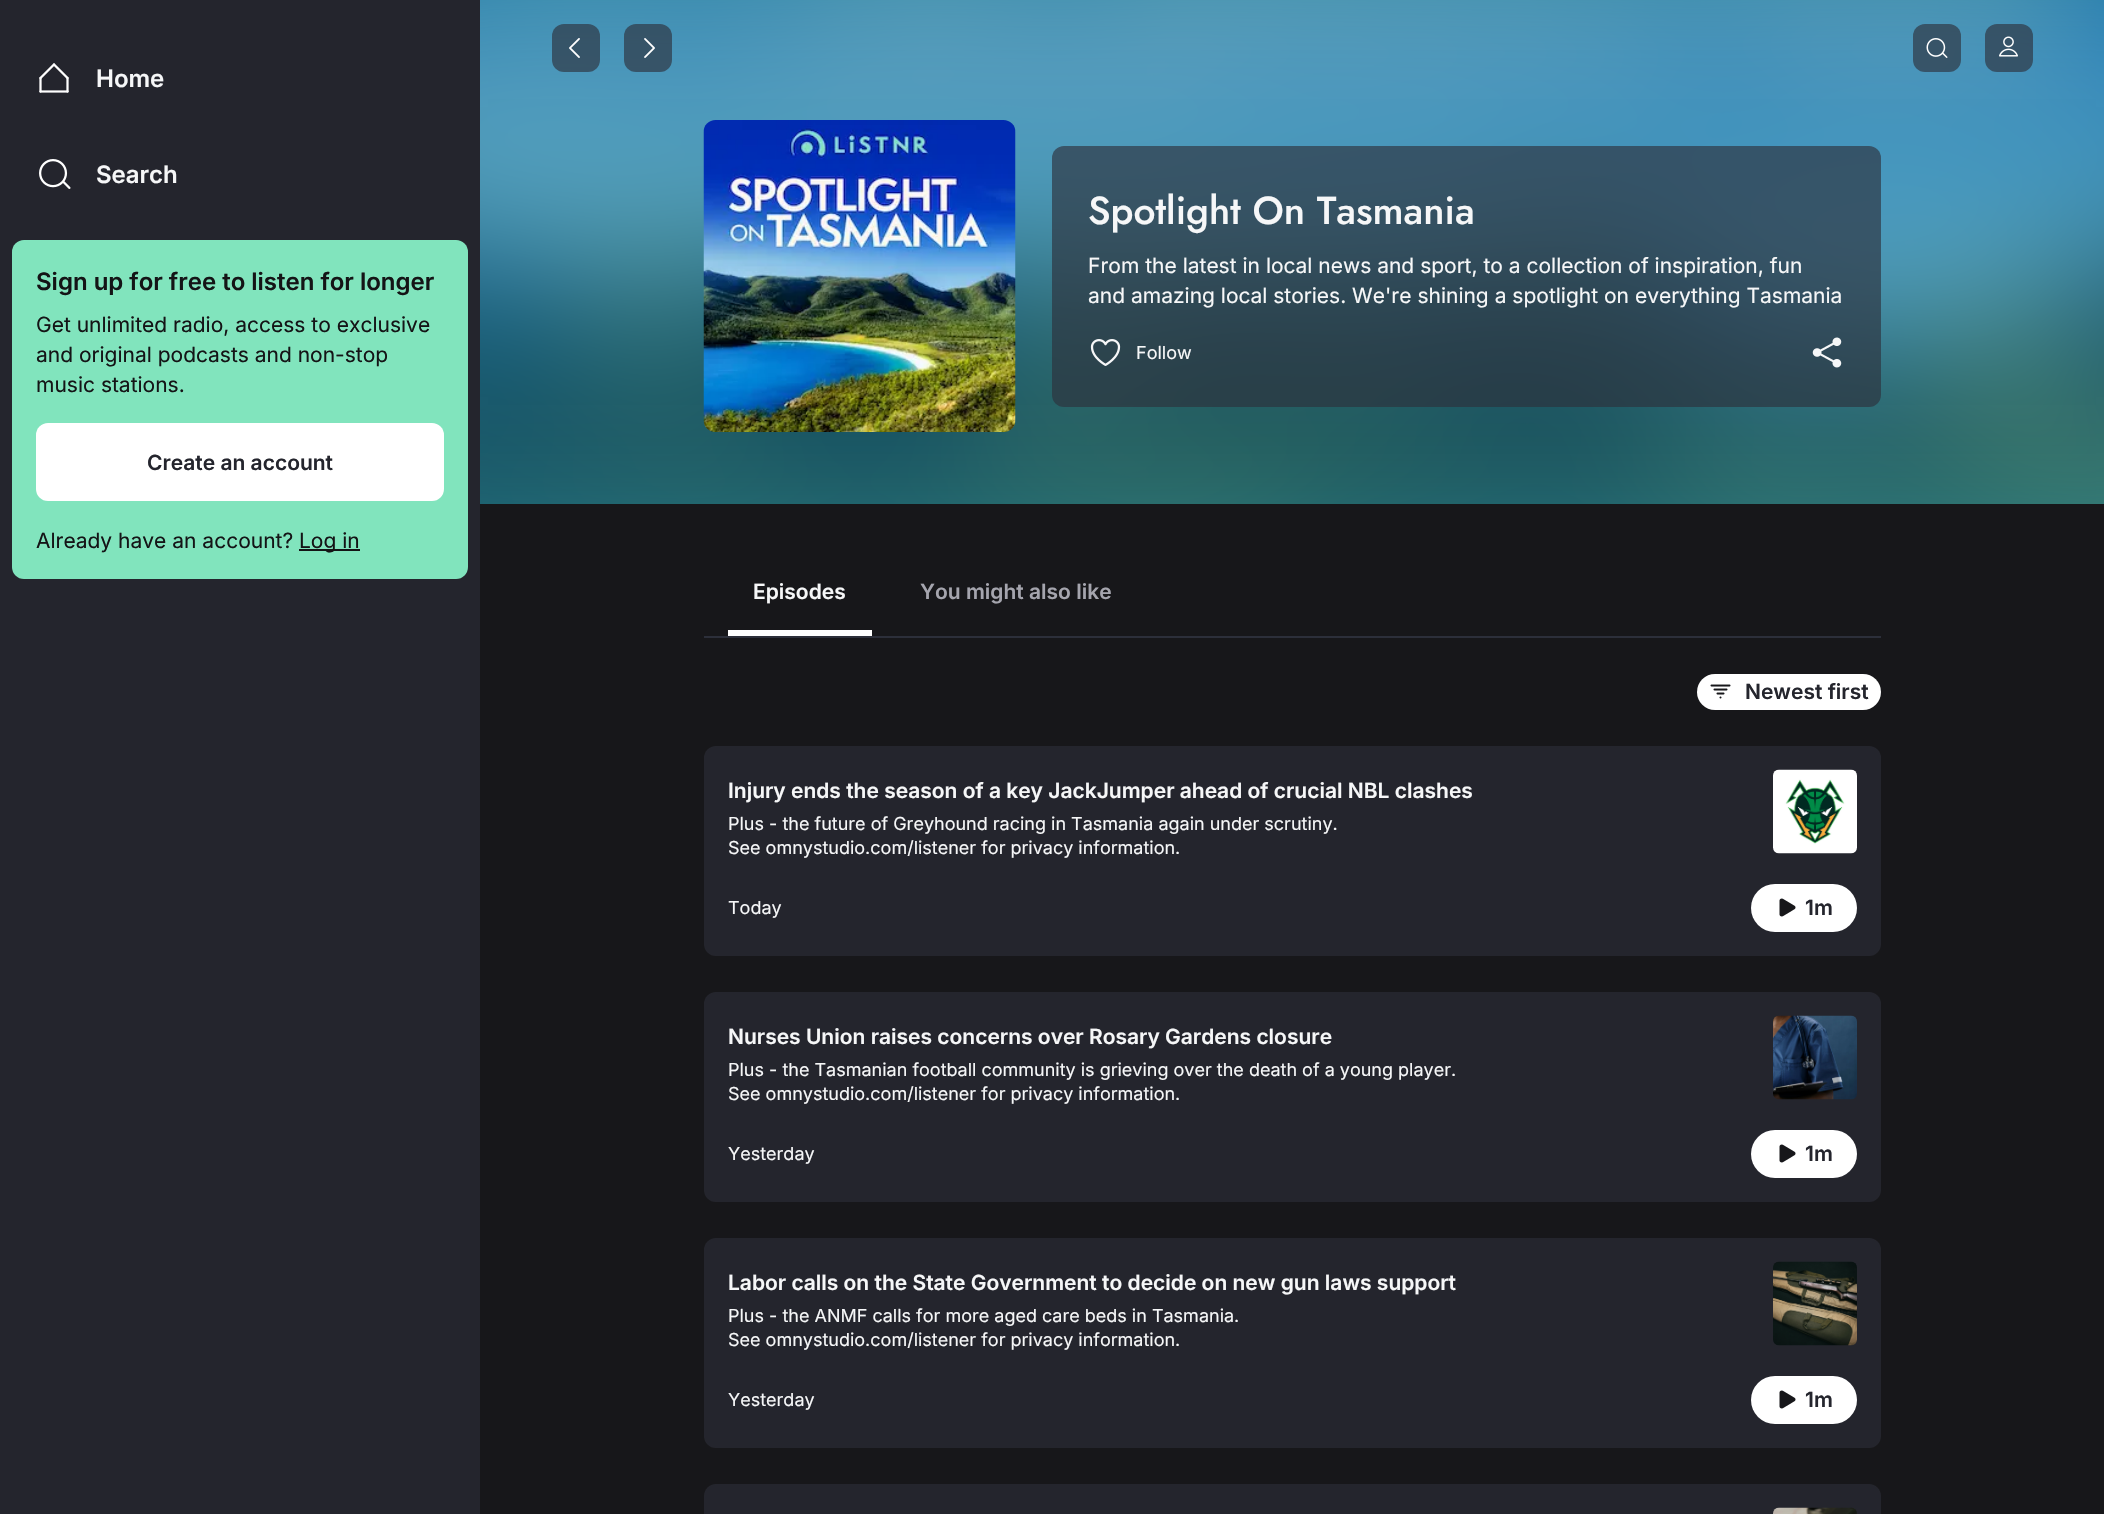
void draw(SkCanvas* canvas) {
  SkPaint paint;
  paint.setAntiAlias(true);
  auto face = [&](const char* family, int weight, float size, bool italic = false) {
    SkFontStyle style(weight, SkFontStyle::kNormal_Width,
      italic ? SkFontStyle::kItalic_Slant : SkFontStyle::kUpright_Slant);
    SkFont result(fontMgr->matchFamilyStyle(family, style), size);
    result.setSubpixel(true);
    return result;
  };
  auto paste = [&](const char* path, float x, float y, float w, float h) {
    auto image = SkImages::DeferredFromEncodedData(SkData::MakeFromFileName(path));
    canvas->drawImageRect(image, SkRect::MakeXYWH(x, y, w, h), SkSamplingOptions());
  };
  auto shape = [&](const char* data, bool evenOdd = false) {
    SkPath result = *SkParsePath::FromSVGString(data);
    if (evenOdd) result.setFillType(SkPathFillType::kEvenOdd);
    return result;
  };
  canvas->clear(0xff17171a);
  paint.setColor(0xff24252d);
  canvas->drawRect(SkRect::MakeXYWH(0, 0, 480, 1514), paint);
  paste("img/1.png", 39, 63, 30, 30);
  paste("img/2.png", 39, 159, 32, 30);
  paint.setColor(0xff81e4bd);
  canvas->drawRoundRect(SkRect::MakeXYWH(12, 240, 456, 339), 12, 12, paint);
  paint.setColor(0xffffffff);
  canvas->drawRoundRect(SkRect::MakeXYWH(36, 423, 408, 78), 12, 12, paint);
  paint.setColor(0xff141416);
  canvas->drawRect(SkRect::MakeXYWH(299, 549, 61, 2), paint);
  paint.setColor(0xff208096);
  canvas->drawRect(SkRect::MakeXYWH(480, 0, 1624, 504), paint);
  paste("img/7.png", 480, 0, 1624, 504);
  paint.setColor(0xa32c2f3a);
  canvas->drawRoundRect(SkRect::MakeXYWH(552, 24, 48, 48), 12, 12, paint);
  paste("img/3.png", 569, 38, 11, 20);
  canvas->drawRoundRect(SkRect::MakeXYWH(624, 24, 48, 48), 12, 12, paint);
  paste("img/4.png", 644, 38, 11, 20);
  canvas->drawRoundRect(SkRect::MakeXYWH(1913, 24, 48, 48), 12, 12, paint);
  paste("img/5.png", 1926, 38, 22, 20);
  canvas->drawRoundRect(SkRect::MakeXYWH(1985, 24, 48, 48), 12, 12, paint);
  paste("img/6.png", 1999, 36, 19, 21);
  paste("img/8.png", 703, 120, 313, 312);
  canvas->drawRoundRect(SkRect::MakeXYWH(1052, 146, 829, 261), 12, 12, paint);
  paste("img/9.png", 1090, 339, 31, 27);
  paste("img/10.png", 1812, 337, 30, 31);
  paint.setColor(0xffffffff);
  canvas->drawRect(SkRect::MakeXYWH(728, 630, 144, 6), paint);
  paint.setColor(0xff2c2f3a);
  canvas->drawRect(SkRect::MakeXYWH(704, 636, 1177, 2), paint);
  paint.setColor(0xffffffff);
  canvas->drawRoundRect(SkRect::MakeXYWH(1697, 674, 184, 36), 18, 18, paint);
  paste("img/11.png", 1710, 684, 21, 15);
  paint.setColor(0xff24252d);
  canvas->drawRoundRect(SkRect::MakeXYWH(704, 746, 1177, 210), 12, 12, paint);
  paste("img/12.png", 1773, 769, 84, 85);
  paint.setColor(0xffffffff);
  canvas->drawRoundRect(SkRect::MakeXYWH(1751, 884, 106, 48), 24, 24, paint);
  paste("img/13.png", 1779, 898, 17, 19);
  paint.setColor(0xff24252d);
  canvas->drawRoundRect(SkRect::MakeXYWH(704, 992, 1177, 210), 12, 12, paint);
  paste("img/14.png", 1773, 1015, 84, 85);
  paint.setColor(0xffffffff);
  canvas->drawRoundRect(SkRect::MakeXYWH(1751, 1130, 106, 48), 24, 24, paint);
  paste("img/13.png", 1779, 1144, 17, 19);
  paint.setColor(0xff24252d);
  canvas->drawRoundRect(SkRect::MakeXYWH(704, 1238, 1177, 210), 12, 12, paint);
  paste("img/15.png", 1773, 1261, 84, 85);
  paint.setColor(0xffffffff);
  canvas->drawRoundRect(SkRect::MakeXYWH(1751, 1376, 106, 48), 24, 24, paint);
  paste("img/13.png", 1779, 1390, 17, 19);
  paint.setColor(0xff24252d);
  canvas->drawPath(shape("M716 1484H1869C1875.5 1484 1881 1489.5 1881 1496V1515H704V1496C704 1489.5 709.5 1484 716 1484Z"), paint);
  paste("img/16.png", 1773, 1507, 84, 7);
  auto f0 = face("Inter", 600, 24);
  paint.setColor(0xfff6f7f8);
  canvas->drawString("Home", 96, 87, f0, paint);
  canvas->drawString("Search", 96, 183, f0, paint);
  paint.setColor(0xff141416);
  canvas->drawString("Sign up for free to listen for longer", 36, 290, f0, paint);
  auto f1 = face("Inter", 400, 21);
  {
    const struct { const char* s; float x, y; } items[] = {
      {"Get unlimited radio, access to exclusive", 36, 332},
      {"and original podcasts and non-stop", 36, 362},
      {"music stations.", 36, 392},
    };
    for (auto [s, x, y] : items) {
      canvas->drawString(s, x, y, f1, paint);
    }
  }
  auto f2 = face("Inter", 600, 21);
  paint.setColor(0xff24252d);
  canvas->drawString("Create an account", 147, 470, f2, paint);
  paint.setColor(0xff141416);
  canvas->drawString("Already have an account?", 36, 548, f1, paint);
  canvas->drawString("Log in", 299, 548, f1, paint);
  auto f3 = face("Jost", 500, 39);
  paint.setColor(0xfff6f7f8);
  canvas->drawString("Spotlight On Tasmania", 1088, 224, f3, paint);
  canvas->drawString("From the latest in local news and sport, to a collection of inspiration, fun", 1088, 273, f1, paint);
  canvas->drawString("and amazing local stories. We're shining a spotlight on everything Tasmania", 1088, 303, f1, paint);
  auto f4 = face("Inter", 400, 18);
  canvas->drawString("Follow", 1136, 359, f4, paint);
  canvas->drawString("Episodes", 753, 599, f2, paint);
  paint.setColor(0xffa5a5ae);
  canvas->drawString("You might also like", 920, 599, f2, paint);
  paint.setColor(0xff24252d);
  canvas->drawString("Newest first", 1745, 699, f2, paint);
  paint.setColor(0xfff6f7f8);
  canvas->drawString("Injury ends the season of a key JackJumper ahead of crucial NBL clashes", 728, 798, f2, paint);
  {
    const struct { const char* s; float x, y; } items[] = {
      {"Plus - the future of Greyhound racing in Tasmania again under scrutiny.", 728, 830},
      {"See omnystudio.com/listener for privacy information.", 728, 854},
      {"Today", 728, 914},
    };
    for (auto [s, x, y] : items) {
      canvas->drawString(s, x, y, f4, paint);
    }
  }
  paint.setColor(0xff24252d);
  canvas->drawString("1m", 1805, 915, f2, paint);
  paint.setColor(0xfff6f7f8);
  canvas->drawString("Nurses Union raises concerns over Rosary Gardens closure", 728, 1044, f2, paint);
  {
    const struct { const char* s; float x, y; } items[] = {
      {"Plus - the Tasmanian football community is grieving over the death of a young player.", 728, 1076},
      {"See omnystudio.com/listener for privacy information.", 728, 1100},
      {"Yesterday", 728, 1160},
    };
    for (auto [s, x, y] : items) {
      canvas->drawString(s, x, y, f4, paint);
    }
  }
  paint.setColor(0xff24252d);
  canvas->drawString("1m", 1805, 1161, f2, paint);
  paint.setColor(0xfff6f7f8);
  canvas->drawString("Labor calls on the State Government to decide on new gun laws support", 728, 1290, f2, paint);
  {
    const struct { const char* s; float x, y; } items[] = {
      {"Plus - the ANMF calls for more aged care beds in Tasmania.", 728, 1322},
      {"See omnystudio.com/listener for privacy information.", 728, 1346},
      {"Yesterday", 728, 1406},
    };
    for (auto [s, x, y] : items) {
      canvas->drawString(s, x, y, f4, paint);
    }
  }
  paint.setColor(0xff24252d);
  canvas->drawString("1m", 1805, 1407, f2, paint);
}
